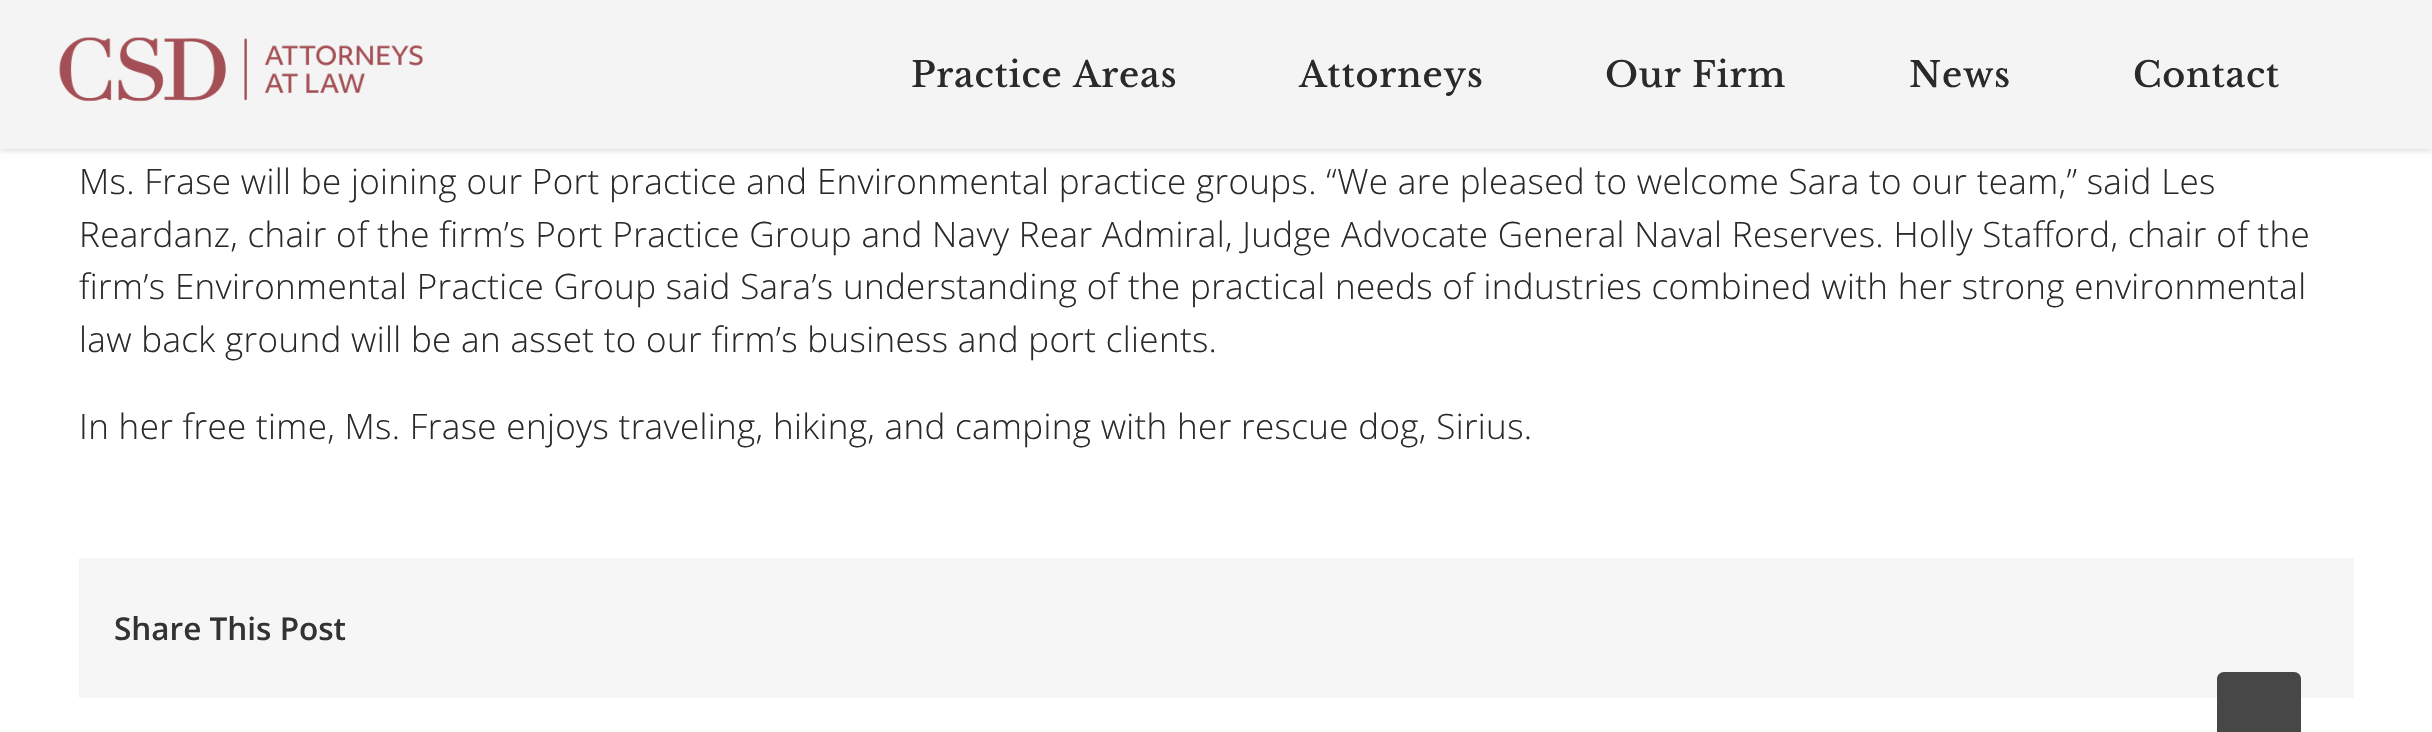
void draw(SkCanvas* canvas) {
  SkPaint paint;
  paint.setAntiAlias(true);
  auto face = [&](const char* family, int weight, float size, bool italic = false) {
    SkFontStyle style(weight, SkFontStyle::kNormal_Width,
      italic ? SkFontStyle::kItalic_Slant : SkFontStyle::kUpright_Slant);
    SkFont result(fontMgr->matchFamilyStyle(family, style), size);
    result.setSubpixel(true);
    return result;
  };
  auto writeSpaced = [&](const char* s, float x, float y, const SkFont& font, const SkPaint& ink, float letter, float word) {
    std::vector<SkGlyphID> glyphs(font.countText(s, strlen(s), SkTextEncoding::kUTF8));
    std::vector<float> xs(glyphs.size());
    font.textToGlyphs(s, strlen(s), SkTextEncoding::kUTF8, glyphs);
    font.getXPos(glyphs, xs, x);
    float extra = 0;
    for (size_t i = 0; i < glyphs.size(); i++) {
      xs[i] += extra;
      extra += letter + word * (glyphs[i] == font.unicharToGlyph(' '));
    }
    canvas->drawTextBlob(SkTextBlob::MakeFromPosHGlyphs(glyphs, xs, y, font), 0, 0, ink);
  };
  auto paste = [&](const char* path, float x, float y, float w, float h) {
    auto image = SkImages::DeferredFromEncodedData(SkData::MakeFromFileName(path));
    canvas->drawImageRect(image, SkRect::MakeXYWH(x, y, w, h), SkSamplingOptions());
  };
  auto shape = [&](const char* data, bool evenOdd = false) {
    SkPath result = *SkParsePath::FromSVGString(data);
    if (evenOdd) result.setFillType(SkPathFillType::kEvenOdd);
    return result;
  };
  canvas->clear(0xffffffff);
  paint.setColor(0x1f000000);
  paint.setMaskFilter(SkMaskFilter::MakeBlur(kNormal_SkBlurStyle, 2.5f));
  canvas->drawRect(SkRect::MakeXYWH(0, 2, 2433, 149), paint);
  paint.setMaskFilter(nullptr);
  paint.setColor(0xfff4f4f4);
  canvas->drawRect(SkRect::MakeXYWH(0, 0, 2432, 149), paint);
  paste("img/1.png", 59, 37, 364, 65);
  paint.setColor(0xfff6f6f6);
  canvas->drawRect(SkRect::MakeXYWH(79, 558, 2275, 140), paint);
  paint.setColor(0xe6333333);
  canvas->drawPath(shape("M2224 672H2294C2298 672 2301 675 2301 679V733H2217V679C2217 675 2220 672 2224 672Z"), paint);
  auto f0 = face("Libre Baskerville", 500, 35);
  paint.setColor(0xff2a2a2a);
  {
    const struct { const char* s; float x, y; } items[] = {
      {"Practice Areas", 911, 87},
      {"Attorneys", 1299, 87},
      {"Our Firm", 1605, 87},
      {"News", 1909, 87},
      {"Contact", 2133, 87},
    };
    for (auto [s, x, y] : items) {
      writeSpaced(s, x, y, f0, paint, 0.75f, 0);
    }
  }
  auto f1 = face("Open Sans", 300, 35);
  {
    const struct { const char* s; float x, y; } items[] = {
      {"Ms. Frase will be joining our Port practice and Environmental practice groups. “We are pleased to welcome Sara to our team,” said Les", 79, 194},
      {"Reardanz, chair of the firm’s Port Practice Group and Navy Rear Admiral, Judge Advocate General Naval Reserves. Holly Stafford, chair of the", 79, 247},
      {"firm’s Environmental Practice Group said Sara’s understanding of the practical needs of industries combined with her strong environmental", 79, 299},
      {"law back ground will be an asset to our firm’s business and port clients.", 79, 352},
      {"In her free time, Ms. Frase enjoys traveling, hiking, and camping with her rescue dog, Sirius.", 79, 439},
    };
    for (auto [s, x, y] : items) {
      writeSpaced(s, x, y, f1, paint, 0.35f, 0);
    }
  }
  auto f2 = face("Open Sans", 600, 31.5f);
  paint.setColor(0xff333333);
  canvas->drawString("Share This Post", 114, 640, f2, paint);
}
